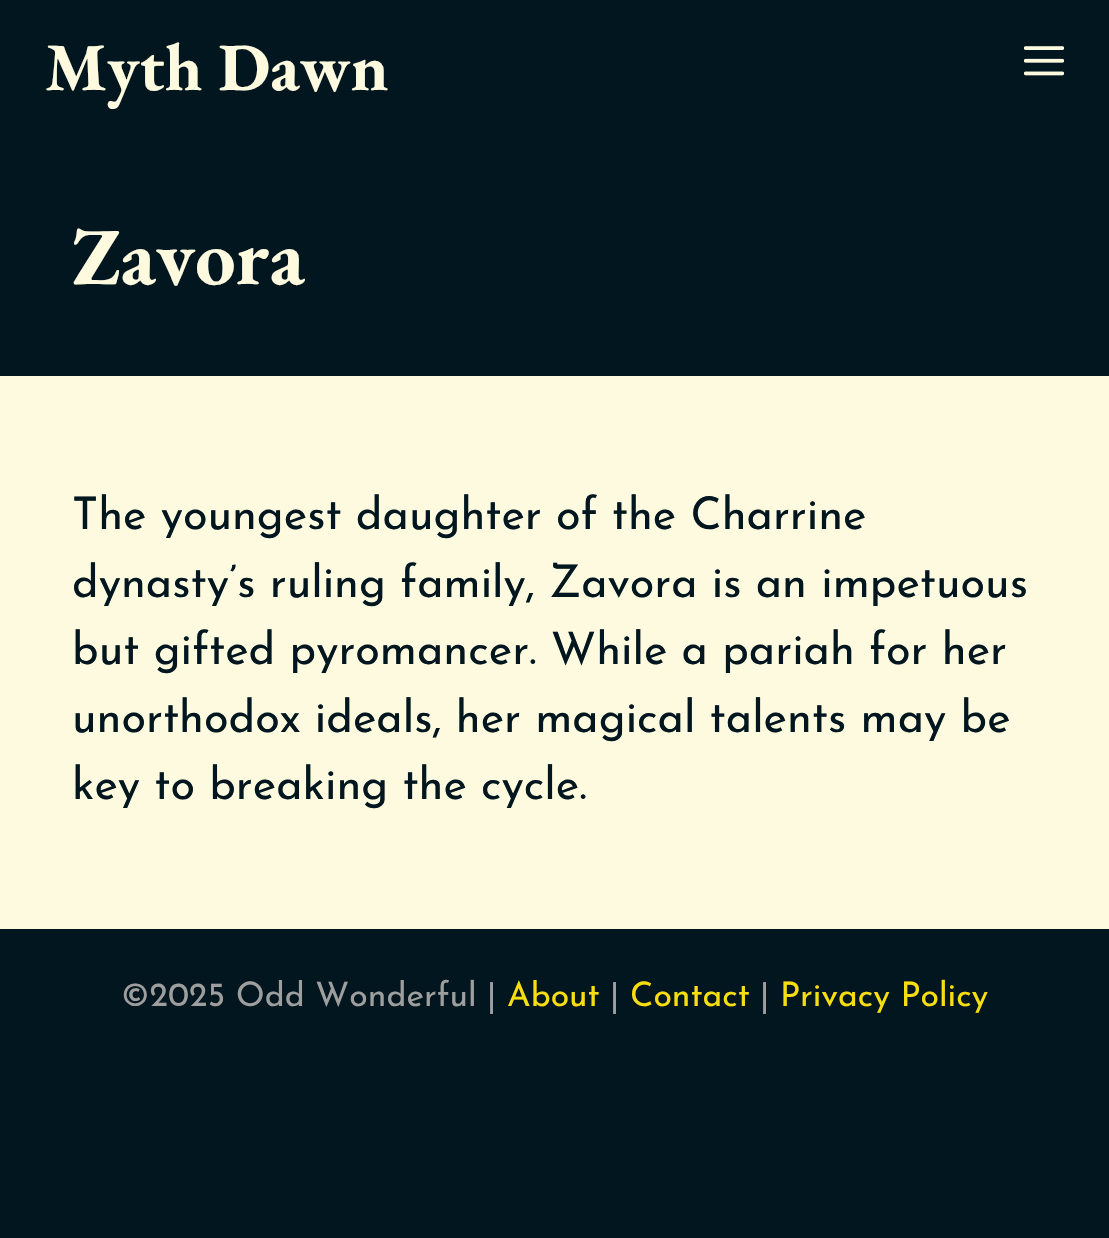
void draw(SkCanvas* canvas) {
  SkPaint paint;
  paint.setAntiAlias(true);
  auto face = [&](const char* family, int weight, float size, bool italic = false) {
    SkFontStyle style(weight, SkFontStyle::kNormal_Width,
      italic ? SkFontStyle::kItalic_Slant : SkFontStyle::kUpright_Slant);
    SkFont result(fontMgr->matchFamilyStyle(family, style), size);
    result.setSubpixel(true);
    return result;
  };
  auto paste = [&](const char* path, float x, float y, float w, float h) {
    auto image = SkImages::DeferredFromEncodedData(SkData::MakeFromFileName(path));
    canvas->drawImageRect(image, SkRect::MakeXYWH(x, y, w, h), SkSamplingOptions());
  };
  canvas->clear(0xff01161e);
  paste("img/1.png", 1024, 46, 40, 30);
  paint.setColor(0xfffefae0);
  canvas->drawRect(SkRect::MakeXYWH(0, 376, 1109, 553), paint);
  auto f0 = face("EB Garamond", 700, 67.5f);
  canvas->drawString("Myth Dawn", 45, 90, f0, paint);
  auto f1 = face("EB Garamond", 700, 81);
  canvas->drawString("Zavora", 72, 284, f1, paint);
  auto f2 = face("Josefin Sans", 400, 45);
  paint.setColor(0xff01161e);
  {
    const struct { const char* s; float x, y; } items[] = {
      {"The youngest daughter of the Charrine", 72, 529},
      {"dynasty’s ruling family, Zavora is an impetuous", 72, 597},
      {"but gifted pyromancer. While a pariah for her", 72, 664},
      {"unorthodox ideals, her magical talents may be", 72, 732},
      {"key to breaking the cycle.", 72, 799},
    };
    for (auto [s, x, y] : items) {
      canvas->drawString(s, x, y, f2, paint);
    }
  }
  auto f3 = face("Josefin Sans", 400, 33.75f);
  paint.setColor(0xff9e9e9e);
  canvas->drawString("©2025 Odd Wonderful |", 121, 1006, f3, paint);
  paint.setColor(0xfff8dd10);
  canvas->drawString("About", 507, 1006, f3, paint);
  paint.setColor(0xff9e9e9e);
  canvas->drawString("|", 610, 1006, f3, paint);
  paint.setColor(0xfff8dd10);
  canvas->drawString("Contact", 630, 1006, f3, paint);
  paint.setColor(0xff9e9e9e);
  canvas->drawString("|", 760, 1006, f3, paint);
  paint.setColor(0xfff8dd10);
  canvas->drawString("Privacy Policy", 780, 1006, f3, paint);
}
